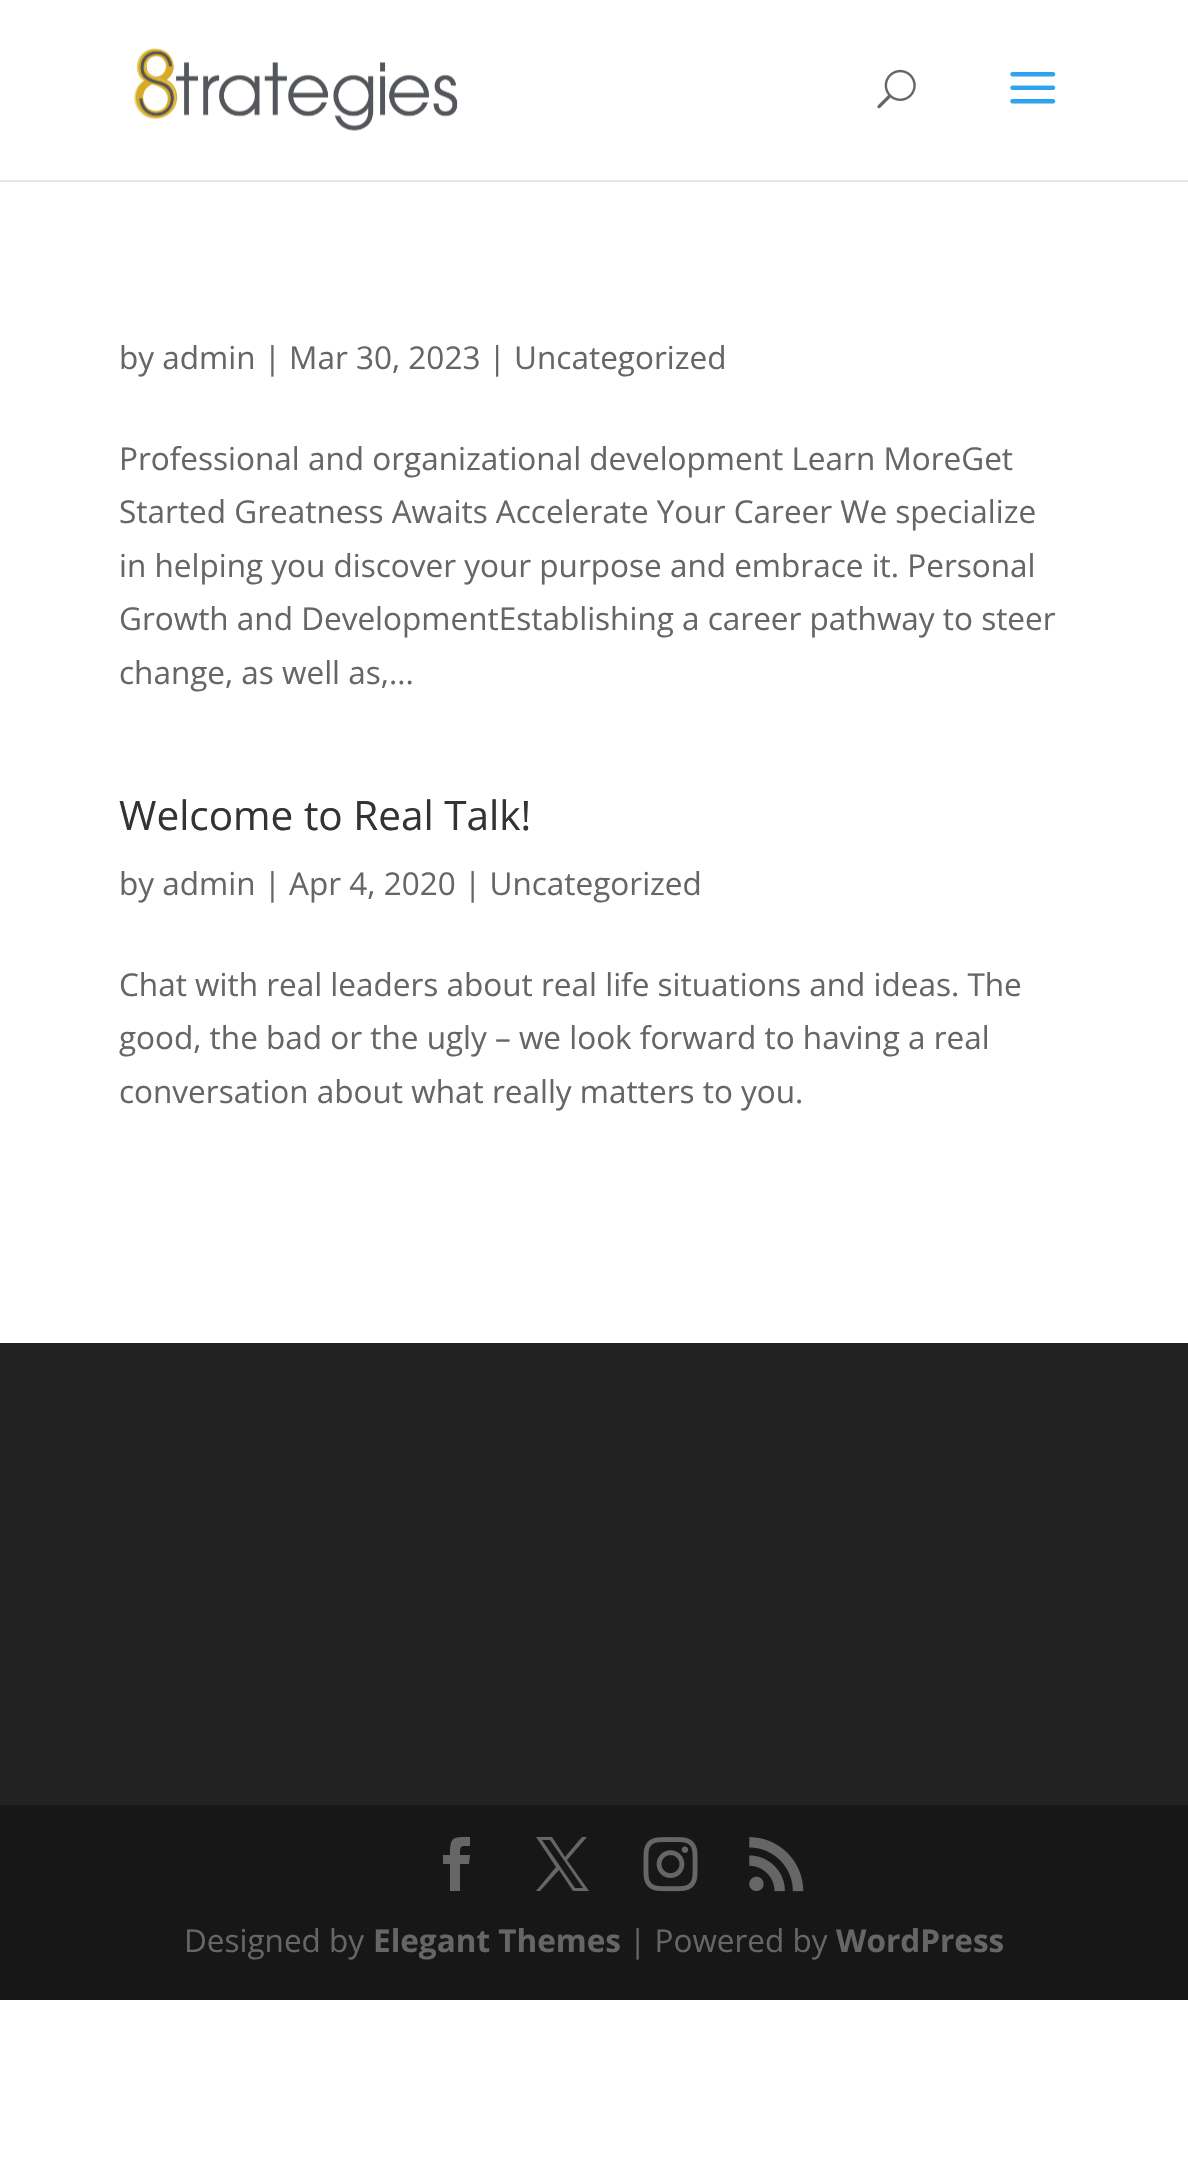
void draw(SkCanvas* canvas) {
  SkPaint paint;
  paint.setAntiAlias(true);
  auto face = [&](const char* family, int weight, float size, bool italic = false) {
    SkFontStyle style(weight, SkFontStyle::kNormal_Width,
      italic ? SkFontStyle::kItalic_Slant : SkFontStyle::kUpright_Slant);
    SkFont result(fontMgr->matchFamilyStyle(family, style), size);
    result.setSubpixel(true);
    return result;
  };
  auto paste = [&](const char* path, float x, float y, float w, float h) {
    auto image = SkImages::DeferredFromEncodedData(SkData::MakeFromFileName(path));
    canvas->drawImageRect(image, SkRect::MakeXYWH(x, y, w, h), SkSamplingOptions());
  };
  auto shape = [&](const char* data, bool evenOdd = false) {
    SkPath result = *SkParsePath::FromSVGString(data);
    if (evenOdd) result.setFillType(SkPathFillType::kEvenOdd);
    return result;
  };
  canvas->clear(0xffffffff);
  paint.setColor(0xffe6e6e6);
  canvas->drawRect(SkRect::MakeXYWH(0, 180, 1188, 2), paint);
  paste("img/1.png", 134, 48, 324, 83);
  paste("img/2.png", 877, 69, 39, 40);
  paste("img/3.png", 1010, 72, 46, 32);
  paint.setColor(0xff222222);
  canvas->drawRect(SkRect::MakeXYWH(0, 1343, 1188, 462), paint);
  paint.setColor(0xff171717);
  canvas->drawRect(SkRect::MakeXYWH(0, 1805, 1188, 195), paint);
  paint.setColor(0xff666666);
  canvas->drawPath(shape("M450 1891H460V1864H469L470 1855H460C460 1845 460 1846 470 1846V1837C453 1837 450 1836 450 1855H443V1864H450Z"), paint);
  canvas->drawPath(shape("M536 1837L556 1867L536 1891H540L559 1870L573 1891H589L567 1860L587 1837H582L565 1857L552 1837ZM542 1840H550L583 1888H575Z"), paint);
  paste("img/4.png", 643, 1837, 55, 55);
  paste("img/5.png", 749, 1837, 55, 55);
  auto f0 = face("Open Sans", 400, 31.5f);
  {
    const struct { const char* s; float x, y; } items[] = {
      {"by admin | Mar 30, 2023 | Uncategorized", 119, 369},
      {"Professional and organizational development Learn MoreGet", 119, 470},
      {"Started Greatness Awaits Accelerate Your Career We specialize", 119, 523},
      {"in helping you discover your purpose and embrace it. Personal", 119, 577},
      {"Growth and DevelopmentEstablishing a career pathway to steer", 119, 630},
      {"change, as well as,...", 119, 684},
    };
    for (auto [s, x, y] : items) {
      canvas->drawString(s, x, y, f0, paint);
    }
  }
  auto f1 = face("Open Sans", 400, 40.5f);
  paint.setColor(0xff333333);
  canvas->drawString("Welcome to Real Talk!", 119, 830, f1, paint);
  paint.setColor(0xff666666);
  {
    const struct { const char* s; float x, y; } items[] = {
      {"by admin | Apr 4, 2020 | Uncategorized", 119, 895},
      {"Chat with real leaders about real life situations and ideas. The", 119, 996},
      {"good, the bad or the ugly – we look forward to having a real", 119, 1049},
      {"conversation about what really matters to you.", 119, 1103},
      {"Designed by", 184, 1952},
    };
    for (auto [s, x, y] : items) {
      canvas->drawString(s, x, y, f0, paint);
    }
  }
  auto f2 = face("Open Sans", 700, 31.5f);
  canvas->drawString("Elegant Themes", 373, 1952, f2, paint);
  canvas->drawString("| Powered by", 629, 1952, f0, paint);
  canvas->drawString("WordPress", 836, 1952, f2, paint);
}
